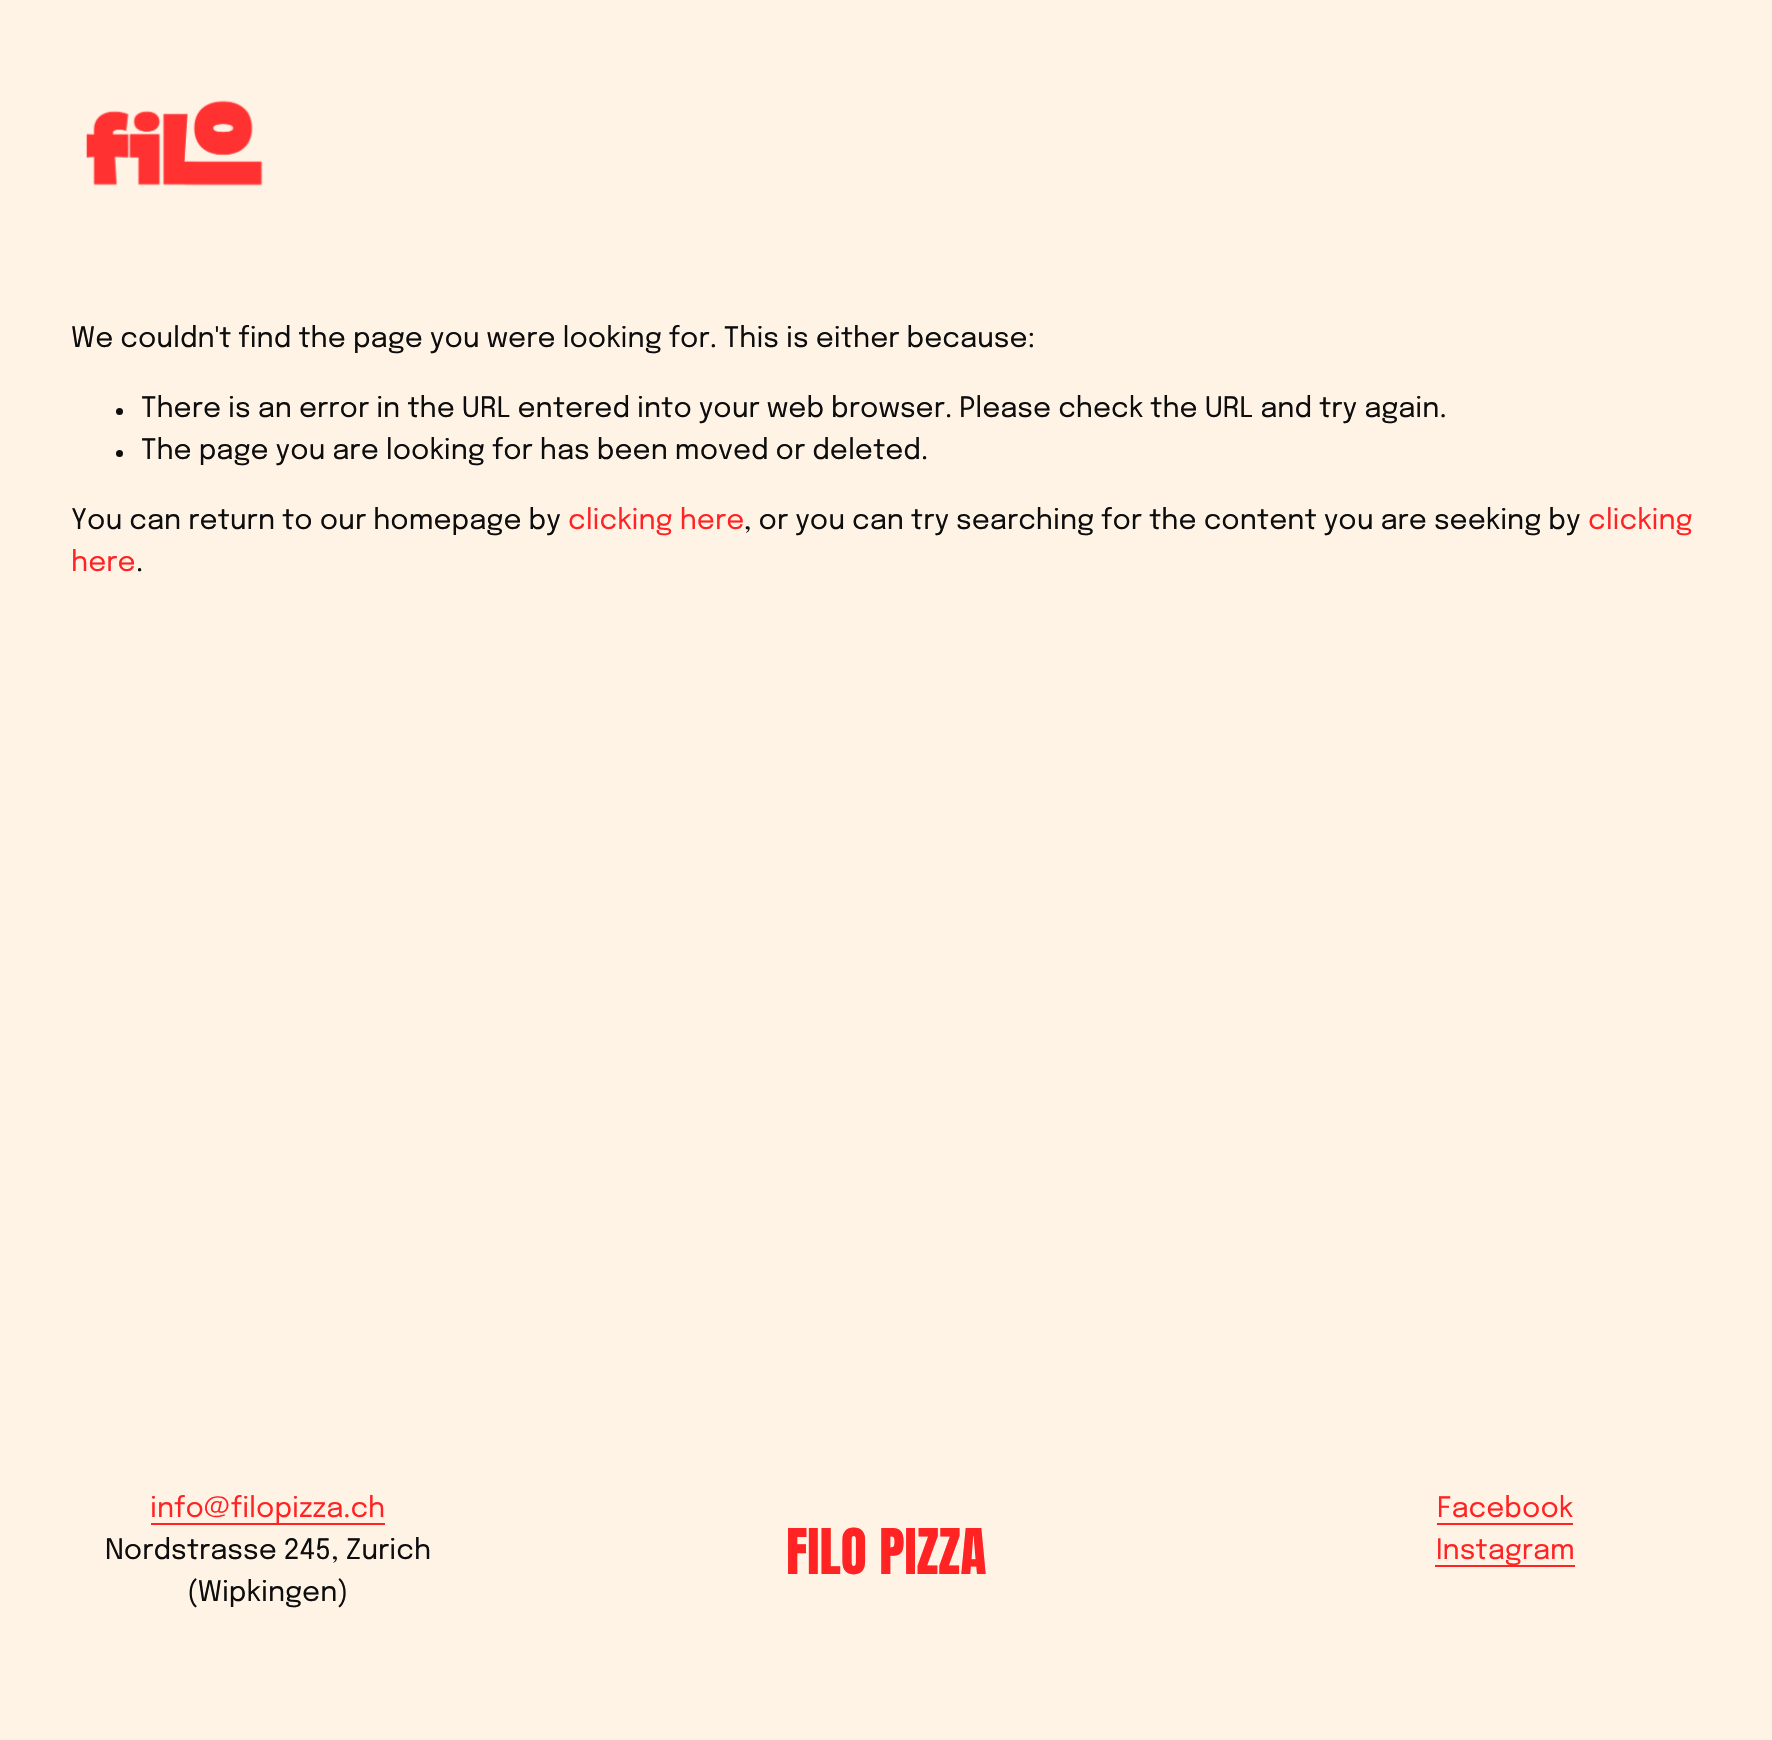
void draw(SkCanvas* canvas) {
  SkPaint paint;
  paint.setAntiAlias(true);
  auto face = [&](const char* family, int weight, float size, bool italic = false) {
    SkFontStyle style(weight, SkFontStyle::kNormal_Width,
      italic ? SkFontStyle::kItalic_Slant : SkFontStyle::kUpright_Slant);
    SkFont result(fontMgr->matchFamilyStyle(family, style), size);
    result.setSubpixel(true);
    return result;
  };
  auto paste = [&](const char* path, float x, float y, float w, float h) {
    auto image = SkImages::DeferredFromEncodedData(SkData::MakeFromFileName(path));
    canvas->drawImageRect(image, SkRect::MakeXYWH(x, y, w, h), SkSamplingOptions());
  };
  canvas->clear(0xfffff3e6);
  paste("img/1.png", 86, 100, 177, 86);
  paint.setColor(0xff0d0d0d);
  canvas->drawCircle(119.5f, 411.5f, 3.5f, paint);
  canvas->drawCircle(119.5f, 453.5f, 3.5f, paint);
  {
    const struct { float x, y, w, h; SkColor color; } items[] = {
      {151, 1523, 234, 2, 0xffff2323},
      {1437, 1523, 136, 2, 0xffff2323},
      {1435, 1565, 140, 2, 0xffff2323},
    };
    for (auto [x, y, w, h, color] : items) {
      paint.setColor(color);
      canvas->drawRect(SkRect::MakeXYWH(x, y, w, h), paint);
    }
  }
  auto f0 = face("Epilogue", 400, 28);
  paint.setColor(0xff0d0d0d);
  {
    const struct { const char* s; float x, y; } items[] = {
      {"We couldn't find the page you were looking for. This is either because:", 71, 347},
      {"There is an error in the URL entered into your web browser. Please check the URL and try again.", 141, 417},
      {"The page you are looking for has been moved or deleted.", 141, 459},
      {"You can return to our homepage by", 71, 529},
    };
    for (auto [s, x, y] : items) {
      canvas->drawString(s, x, y, f0, paint);
    }
  }
  paint.setColor(0xffff2323);
  canvas->drawString("clicking here", 568, 529, f0, paint);
  paint.setColor(0xff0d0d0d);
  canvas->drawString(", or you can try searching for the content you are seeking by", 744, 529, f0, paint);
  paint.setColor(0xffff2323);
  canvas->drawString("clicking", 1588, 529, f0, paint);
  canvas->drawString("here", 71, 571, f0, paint);
  paint.setColor(0xff0d0d0d);
  canvas->drawString(".", 136, 571, f0, paint);
  paint.setColor(0xffff2323);
  canvas->drawString("info@filopizza.ch", 150, 1517, f0, paint);
  paint.setColor(0xff0d0d0d);
  canvas->drawString("Nordstrasse 245, Zurich", 105, 1559, f0, paint);
  canvas->drawString("(Wipkingen)", 187, 1601, f0, paint);
  auto f1 = face("Anton", 400, 53.5f);
  paint.setColor(0xffff2323);
  canvas->drawString("FILO PIZZA", 786, 1574, f1, paint);
  canvas->drawString("Facebook", 1437, 1517, f0, paint);
  canvas->drawString("Instagram", 1436, 1559, f0, paint);
}
